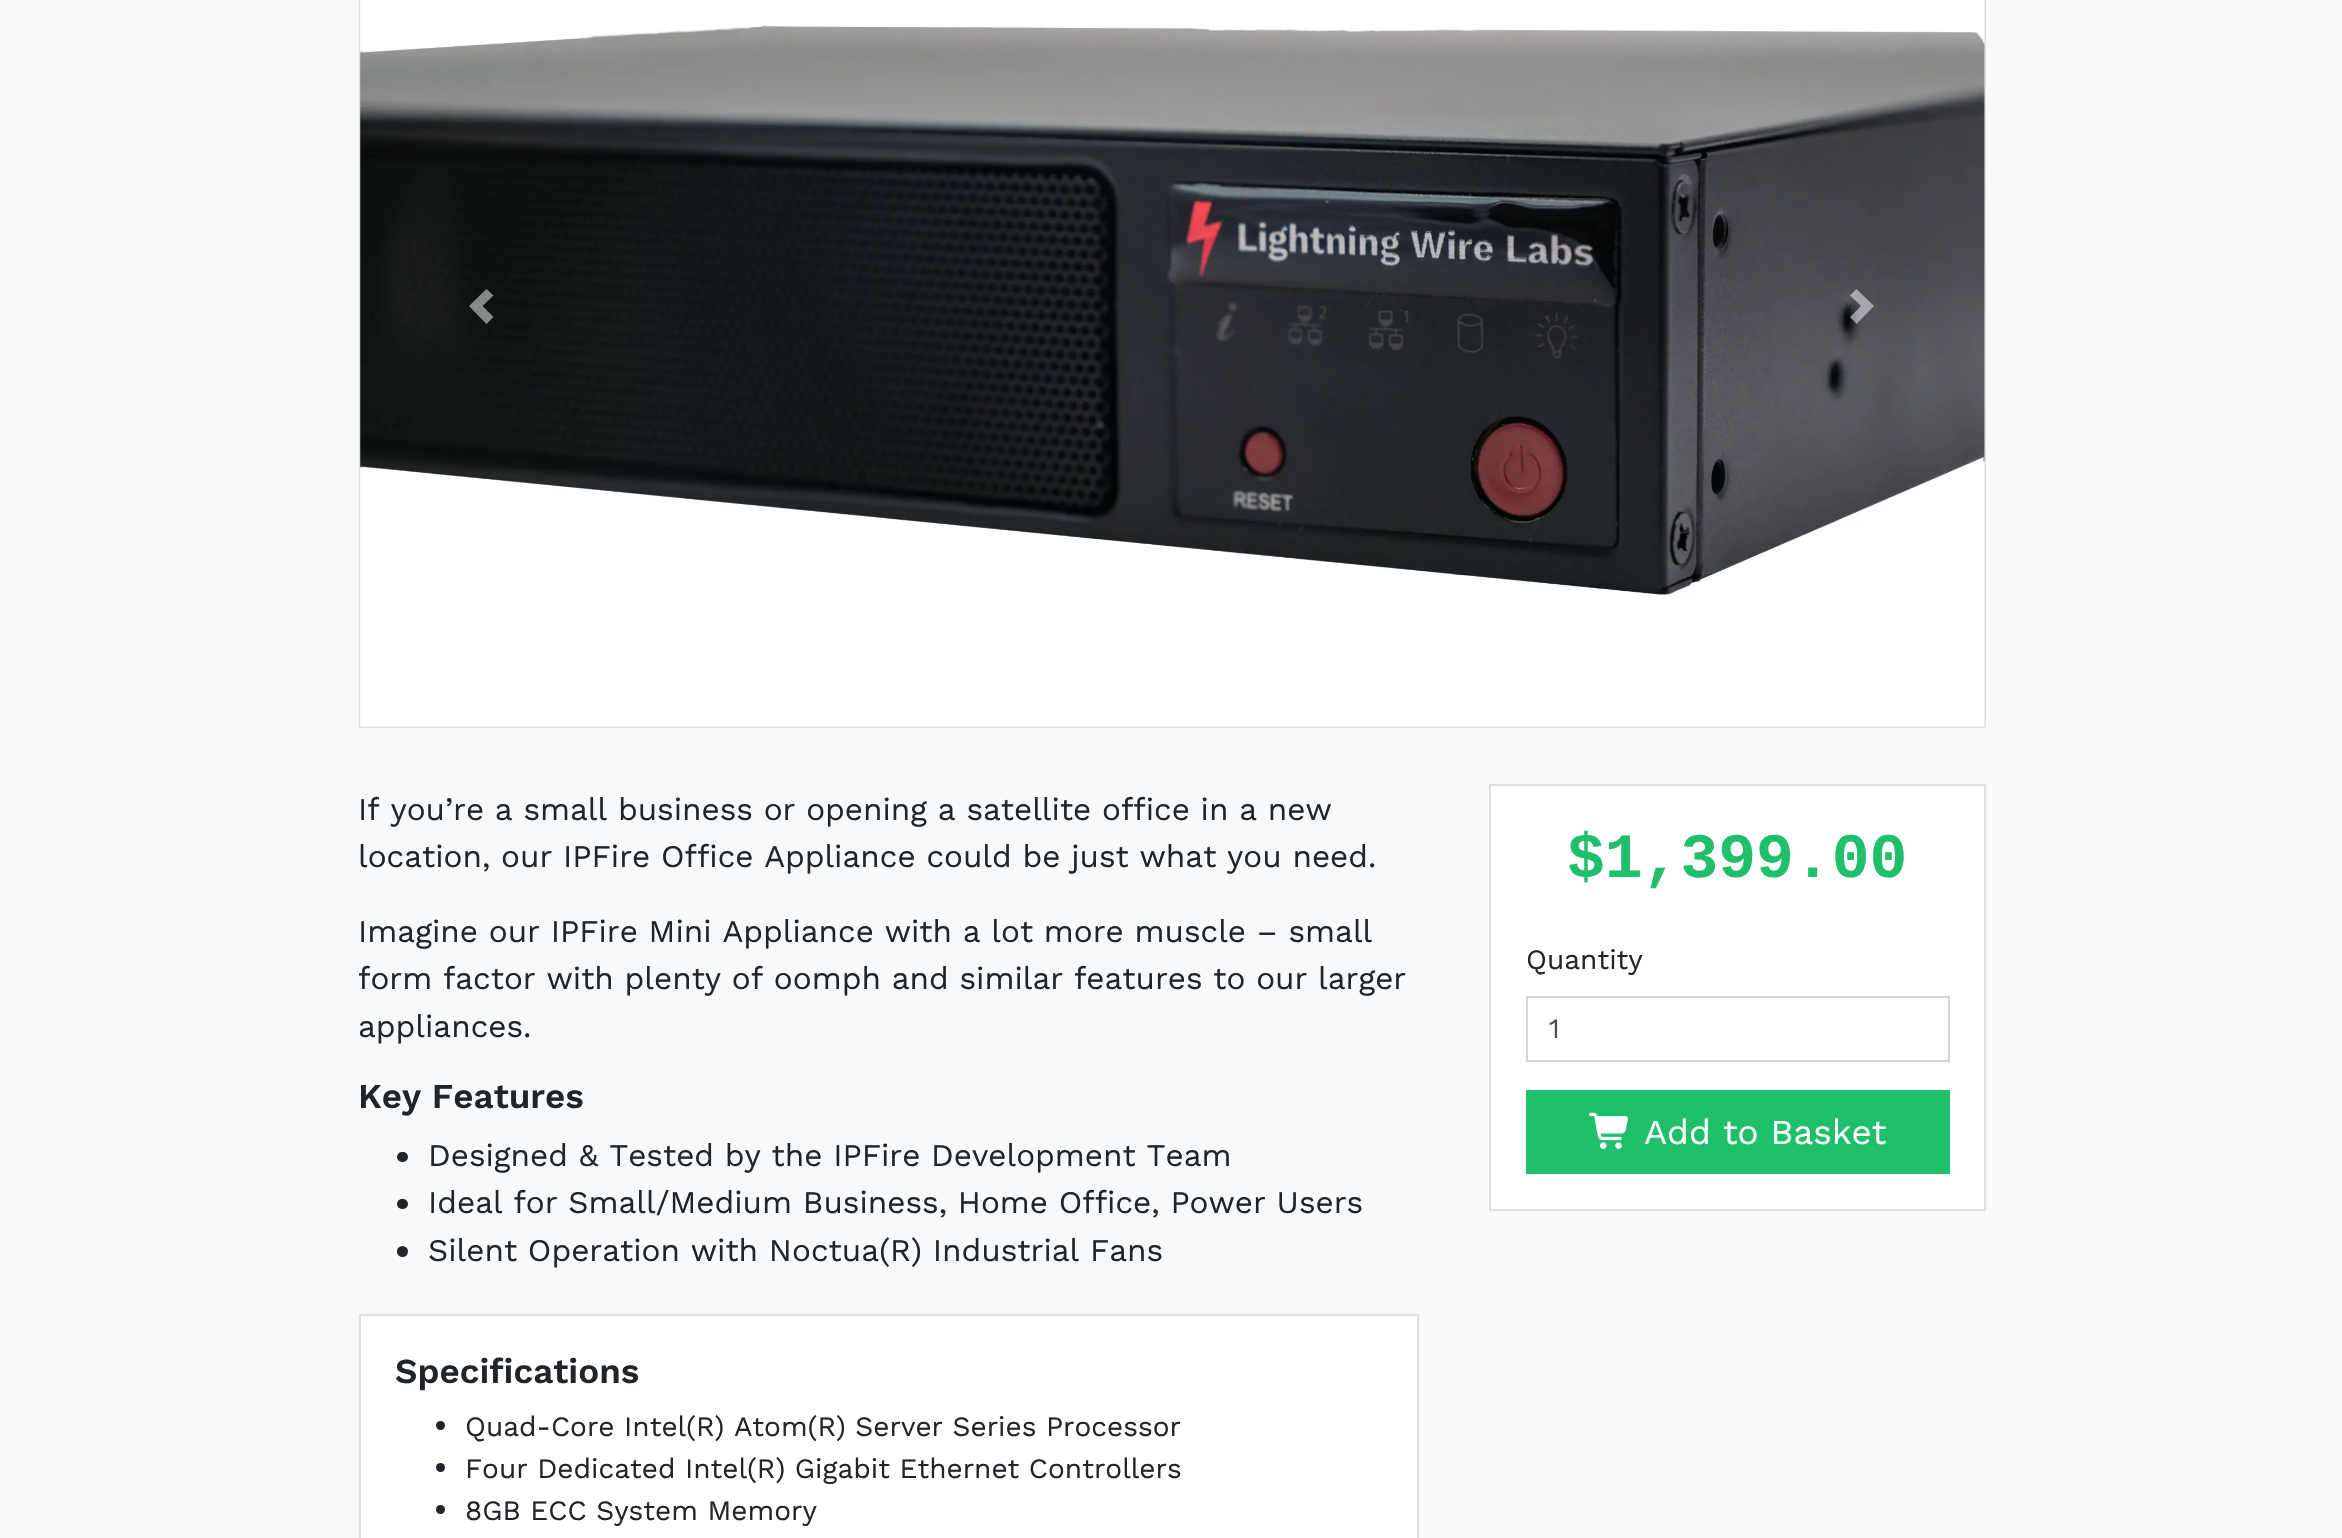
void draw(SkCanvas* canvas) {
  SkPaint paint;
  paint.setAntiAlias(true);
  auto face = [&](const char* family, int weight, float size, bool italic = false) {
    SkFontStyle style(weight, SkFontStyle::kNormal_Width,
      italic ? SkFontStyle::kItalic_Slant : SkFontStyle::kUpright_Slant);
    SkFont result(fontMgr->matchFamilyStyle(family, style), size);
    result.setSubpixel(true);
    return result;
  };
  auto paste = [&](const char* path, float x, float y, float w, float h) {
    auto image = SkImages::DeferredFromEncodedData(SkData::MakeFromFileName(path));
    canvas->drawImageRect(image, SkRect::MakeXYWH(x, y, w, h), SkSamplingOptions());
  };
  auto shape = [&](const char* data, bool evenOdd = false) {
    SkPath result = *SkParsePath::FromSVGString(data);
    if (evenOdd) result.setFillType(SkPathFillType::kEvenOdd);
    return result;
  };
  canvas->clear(0xfff8f9fa);
  paint.setStroke(true);
  paint.setStrokeWidth(2);
  paint.setColor(0xffdfdfdf);
  canvas->drawRect(SkRect::MakeXYWH(360, -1, 1625, 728), paint);
  paste("img/1.png", 360, 0, 1625, 727);
  paint.setStroke(false);
  paint.setColor(0x80ffffff);
  canvas->drawPath(shape("M486.5 289L469 306L486.5 324L493.5 317L482.5 306L493.5 295.5Z"), paint);
  canvas->drawPath(shape("M1856.5 289L1850 295.5L1861 306L1850 317L1856.5 324L1874 306Z"), paint);
  paint.setColor(0xff212529);
  canvas->drawRoundRect(SkRect::MakeXYWH(397, 1152, 11, 10), 5, 5, paint);
  canvas->drawRoundRect(SkRect::MakeXYWH(397, 1199, 11, 10), 5, 5, paint);
  canvas->drawCircle(402.5f, 1251.5f, 5.5f, paint);
  paint.setColor(0xffffffff);
  canvas->drawRect(SkRect::MakeXYWH(360, 1315, 1058, 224), paint);
  paint.setStroke(true);
  paint.setColor(0xffdfdfdf);
  canvas->drawRect(SkRect::MakeXYWH(360, 1315, 1058, 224), paint);
  paint.setStroke(false);
  paint.setColor(0xff212529);
  canvas->drawCircle(440.5f, 1425.5f, 4.5f, paint);
  canvas->drawCircle(440.5f, 1467.5f, 4.5f, paint);
  canvas->drawCircle(440.5f, 1509.5f, 4.5f, paint);
  paint.setColor(0xffffffff);
  canvas->drawRect(SkRect::MakeXYWH(1490, 785, 495, 425), paint);
  paint.setStroke(true);
  paint.setColor(0xffdfdfdf);
  canvas->drawRect(SkRect::MakeXYWH(1490, 785, 495, 425), paint);
  paint.setColor(0xffced4da);
  canvas->drawRect(SkRect::MakeXYWH(1527, 997, 422, 64), paint);
  paint.setStroke(false);
  paint.setColor(0xff20bf6b);
  canvas->drawRect(SkRect::MakeXYWH(1526, 1090, 424, 84), paint);
  paste("img/2.png", 1589, 1112, 39, 37);
  auto f0 = face("Work Sans", 400, 31.5f);
  paint.setColor(0xff212529);
  {
    const struct { const char* s; float x, y; } items[] = {
      {"If you’re a small business or opening a satellite office in a new", 358, 820},
      {"location, our IPFire Office Appliance could be just what you need.", 358, 867},
      {"Imagine our IPFire Mini Appliance with a lot more muscle – small", 358, 942},
      {"form factor with plenty of oomph and similar features to our larger", 358, 989},
      {"appliances.", 358, 1037},
    };
    for (auto [s, x, y] : items) {
      canvas->drawString(s, x, y, f0, paint);
    }
  }
  auto f1 = face("Work Sans", 600, 35);
  canvas->drawString("Key Features", 358, 1108, f1, paint);
  {
    const struct { const char* s; float x, y; } items[] = {
      {"Designed & Tested by the IPFire Development Team", 428, 1166},
      {"Ideal for Small/Medium Business, Home Office, Power Users", 428, 1213},
      {"Silent Operation with Noctua(R) Industrial Fans", 428, 1261},
    };
    for (auto [s, x, y] : items) {
      canvas->drawString(s, x, y, f0, paint);
    }
  }
  canvas->drawString("Specifications", 395, 1383, f1, paint);
  auto f2 = face("Work Sans", 400, 28);
  {
    const struct { const char* s; float x, y; } items[] = {
      {"Quad-Core Intel(R) Atom(R) Server Series Processor", 465, 1436},
      {"Four Dedicated Intel(R) Gigabit Ethernet Controllers", 465, 1478},
      {"8GB ECC System Memory", 465, 1520},
    };
    for (auto [s, x, y] : items) {
      canvas->drawString(s, x, y, f2, paint);
    }
  }
  auto f3 = face("Liberation Mono", 700, 63);
  paint.setColor(0xff20bf6b);
  canvas->drawString("$1,399.00", 1567, 877, f3, paint);
  paint.setColor(0xff212529);
  canvas->drawString("Quantity", 1526, 969, f2, paint);
  paint.setColor(0xff495057);
  canvas->drawString("1", 1549, 1038, f2, paint);
  auto f4 = face("Work Sans", 400, 35);
  paint.setColor(0xffffffff);
  canvas->drawString("Add to Basket", 1644, 1144, f4, paint);
}
